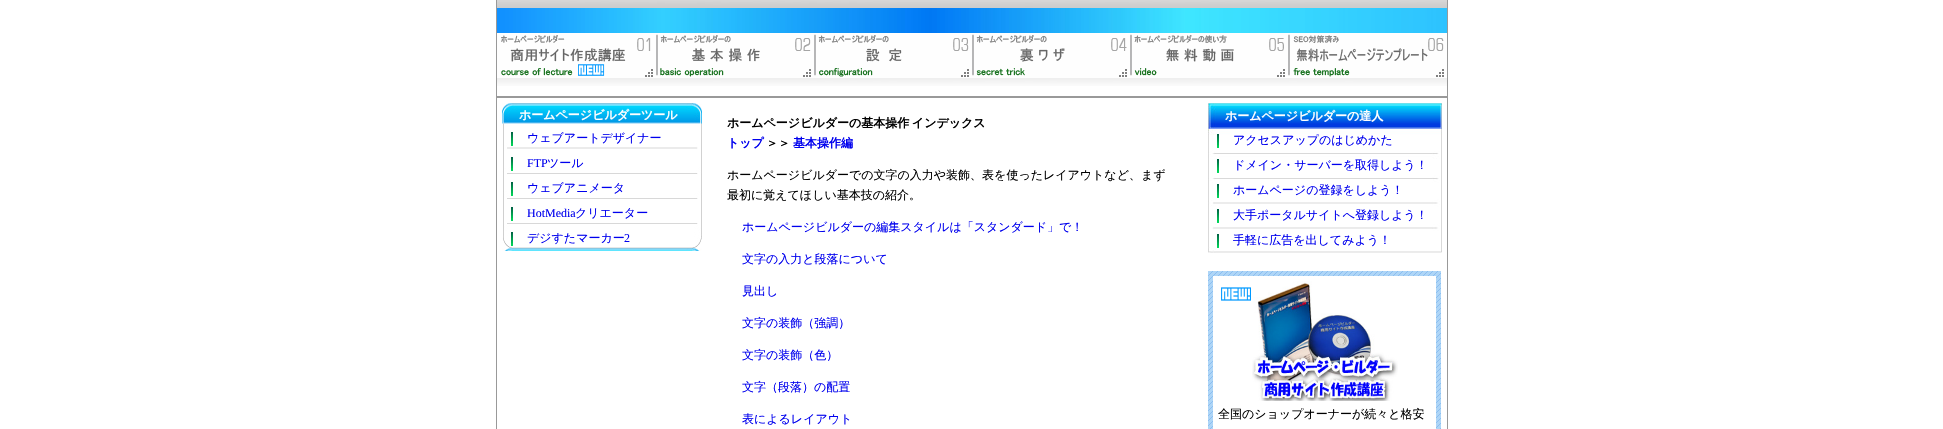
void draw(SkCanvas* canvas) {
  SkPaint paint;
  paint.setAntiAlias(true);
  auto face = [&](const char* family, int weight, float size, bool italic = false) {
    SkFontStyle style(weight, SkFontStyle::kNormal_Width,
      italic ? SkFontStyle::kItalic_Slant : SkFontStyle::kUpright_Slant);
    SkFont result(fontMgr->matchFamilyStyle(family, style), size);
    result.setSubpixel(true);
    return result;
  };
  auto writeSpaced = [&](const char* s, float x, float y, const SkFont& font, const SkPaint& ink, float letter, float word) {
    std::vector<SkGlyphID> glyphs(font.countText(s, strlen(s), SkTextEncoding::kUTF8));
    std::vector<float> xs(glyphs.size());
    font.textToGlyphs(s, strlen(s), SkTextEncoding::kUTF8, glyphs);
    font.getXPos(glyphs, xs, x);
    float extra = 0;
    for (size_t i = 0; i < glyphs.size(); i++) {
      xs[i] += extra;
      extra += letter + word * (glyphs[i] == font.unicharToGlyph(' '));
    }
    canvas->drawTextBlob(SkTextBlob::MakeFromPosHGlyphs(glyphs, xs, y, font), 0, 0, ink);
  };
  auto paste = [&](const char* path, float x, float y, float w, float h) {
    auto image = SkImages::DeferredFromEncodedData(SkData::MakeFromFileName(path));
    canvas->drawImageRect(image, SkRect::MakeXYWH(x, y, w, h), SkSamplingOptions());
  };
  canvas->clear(0xffffffff);
  paint.setStroke(true);
  paint.setStrokeWidth(1);
  paint.setColor(0xff999999);
  canvas->drawRect(SkRect::MakeXYWH(496.5f, -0.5f, 951, 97), paint);
  paste("img/1.png", 497, 0, 950, 8);
  paste("img/2.png", 497, 8, 950, 25);
  paste("img/3.png", 497, 33, 158, 45);
  paste("img/4.png", 578, 64, 27, 12);
  paste("img/5.png", 655, 33, 158, 45);
  paste("img/6.png", 813, 33, 158, 45);
  paste("img/7.png", 971, 33, 158, 45);
  paste("img/8.png", 1129, 33, 158, 45);
  paste("img/9.png", 1287, 33, 160, 45);
  paste("img/10.png", 497, 78, 950, 8);
  canvas->drawRect(SkRect::MakeXYWH(496.5f, 97.5f, 951, 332), paint);
  paste("img/11.png", 502, 103, 200, 148);
  paste("img/12.png", 511, 132, 2, 14);
  paste("img/12.png", 511, 157, 2, 14);
  paste("img/12.png", 511, 182, 2, 14);
  paste("img/12.png", 511, 207, 2, 14);
  paste("img/12.png", 511, 232, 2, 14);
  paste("img/13.png", 1208, 103, 234, 150);
  paste("img/12.png", 1217, 134, 2, 14);
  paste("img/12.png", 1217, 159, 2, 14);
  paste("img/12.png", 1217, 184, 2, 14);
  paste("img/12.png", 1217, 209, 2, 14);
  paste("img/12.png", 1217, 234, 2, 14);
  paste("img/14.png", 1208, 271, 233, 158);
  paint.setStroke(false);
  paint.setColor(0xffffffff);
  canvas->drawRect(SkRect::MakeXYWH(1213, 276, 223, 153), paint);
  paste("img/15.png", 1221, 287, 30, 14);
  paste("img/16.png", 1252, 281, 146, 120);
  auto f0 = face("WenQuanYi Zen Hei", 700, 12);
  canvas->drawString("ホームページビルダーツール", 519, 119, f0, paint);
  auto f1 = face("WenQuanYi Zen Hei", 500, 12);
  paint.setColor(0xff0000ee);
  canvas->drawString("ウェブアートデザイナー", 527, 142, f1, paint);
  auto f2 = face("Liberation Serif", 400, 12);
  canvas->drawString("FTP", 527, 167, f2, paint);
  canvas->drawString("ツール", 547, 167, f1, paint);
  canvas->drawString("ウェブアニメータ", 527, 192, f1, paint);
  canvas->drawString("HotMedia", 527, 217, f2, paint);
  canvas->drawString("クリエーター", 575, 217, f1, paint);
  canvas->drawString("デジすたマーカー", 527, 242, f1, paint);
  canvas->drawString("2", 624, 242, f2, paint);
  paint.setColor(0xff000000);
  writeSpaced("ホームページビルダーの基本操作 インデックス", 727, 127, f0, paint, 0, -1);
  paint.setColor(0xff0000ee);
  canvas->drawString("トップ", 727, 147, f0, paint);
  paint.setColor(0xff000000);
  canvas->drawString("＞＞", 766, 147, f0, paint);
  paint.setColor(0xff0000ee);
  canvas->drawString("基本操作編", 793, 147, f0, paint);
  paint.setColor(0xff000000);
  canvas->drawString("ホームページビルダーでの文字の入力や装飾、表を使ったレイアウトなど、まず", 727, 179, f1, paint);
  canvas->drawString("最初に覚えてほしい基本技の紹介。", 727, 199, f1, paint);
  paint.setColor(0xff0000ee);
  {
    const struct { const char* s; float x, y; } items[] = {
      {"ホームページビルダーの編集スタイルは「スタンダード」で！", 742, 231},
      {"文字の入力と段落について", 742, 263},
      {"見出し", 742, 295},
      {"文字の装飾（強調）", 742, 327},
      {"文字の装飾（色）", 742, 359},
      {"文字（段落）の配置", 742, 391},
      {"表によるレイアウト", 742, 423},
    };
    for (auto [s, x, y] : items) {
      canvas->drawString(s, x, y, f1, paint);
    }
  }
  paint.setColor(0xffffffff);
  canvas->drawString("ホームページビルダーの達人", 1225, 120, f0, paint);
  paint.setColor(0xff0000ee);
  {
    const struct { const char* s; float x, y; } items[] = {
      {"アクセスアップのはじめかた", 1233, 144},
      {"ドメイン・サーバーを取得しよう！", 1233, 169},
      {"ホームページの登録をしよう！", 1233, 194},
      {"大手ポータルサイトへ登録しよう！", 1233, 219},
      {"手軽に広告を出してみよう！", 1233, 244},
    };
    for (auto [s, x, y] : items) {
      canvas->drawString(s, x, y, f1, paint);
    }
  }
  paint.setColor(0xff000000);
  canvas->drawString("全国のショップオーナーが続々と格安", 1218, 418, f1, paint);
}
